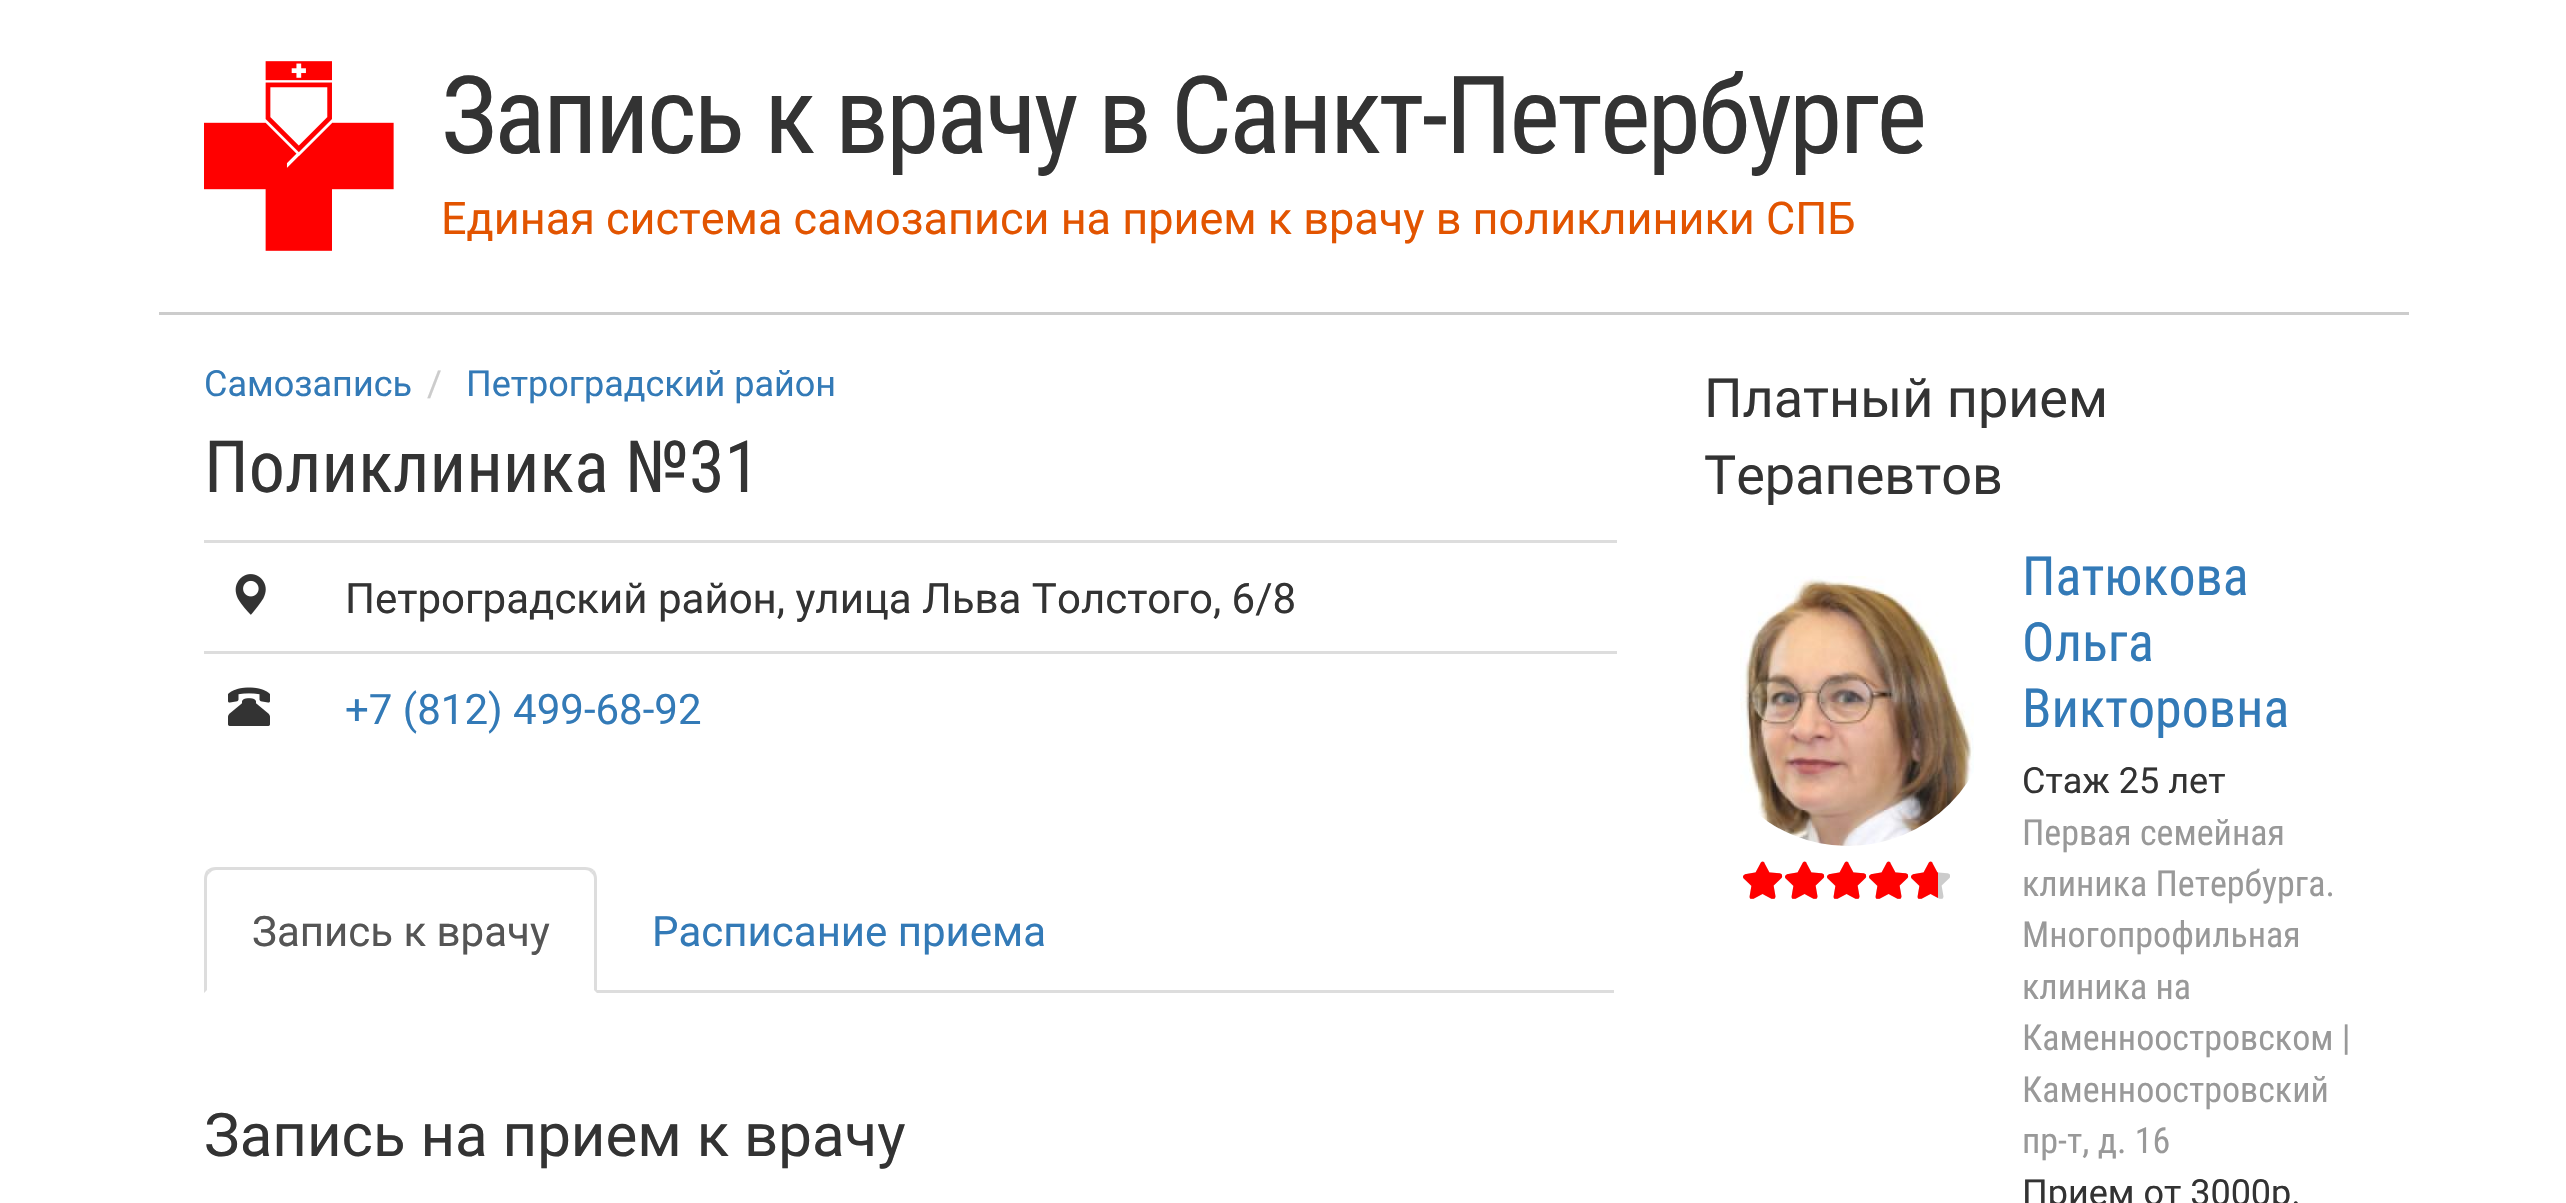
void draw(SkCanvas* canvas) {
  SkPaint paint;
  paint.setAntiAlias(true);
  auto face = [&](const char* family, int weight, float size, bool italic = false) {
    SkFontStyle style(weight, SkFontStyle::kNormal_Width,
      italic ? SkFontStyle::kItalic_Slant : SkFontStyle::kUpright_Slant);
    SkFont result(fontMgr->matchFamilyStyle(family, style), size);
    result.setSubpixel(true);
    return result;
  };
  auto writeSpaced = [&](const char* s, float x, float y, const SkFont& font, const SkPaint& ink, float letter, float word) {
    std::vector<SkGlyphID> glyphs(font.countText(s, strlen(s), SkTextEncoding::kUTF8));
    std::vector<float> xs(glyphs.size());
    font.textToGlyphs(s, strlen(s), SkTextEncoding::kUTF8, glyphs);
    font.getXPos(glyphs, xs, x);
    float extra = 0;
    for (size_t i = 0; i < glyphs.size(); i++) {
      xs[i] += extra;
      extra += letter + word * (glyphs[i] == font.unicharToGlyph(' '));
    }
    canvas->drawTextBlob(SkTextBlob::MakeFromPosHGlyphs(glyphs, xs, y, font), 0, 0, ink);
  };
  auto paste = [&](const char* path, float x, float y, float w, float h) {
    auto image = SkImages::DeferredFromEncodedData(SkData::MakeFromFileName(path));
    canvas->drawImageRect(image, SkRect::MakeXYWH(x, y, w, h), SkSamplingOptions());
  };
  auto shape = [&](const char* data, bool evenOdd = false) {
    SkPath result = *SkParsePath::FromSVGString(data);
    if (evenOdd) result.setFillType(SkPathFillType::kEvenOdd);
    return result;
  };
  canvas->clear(0xffffffff);
  paste("img/1.png", 204, 61, 190, 190);
  paint.setColor(0xffcccccc);
  canvas->drawRect(SkRect::MakeXYWH(159, 312, 2250, 3), paint);
  paste("img/2.png", 235, 574, 31, 41);
  paint.setColor(0xffdddddd);
  canvas->drawRect(SkRect::MakeXYWH(204, 540, 1413, 3), paint);
  paste("img/3.png", 228, 687, 42, 39);
  canvas->drawRect(SkRect::MakeXYWH(204, 651, 1413, 3), paint);
  canvas->drawRect(SkRect::MakeXYWH(597, 990, 1017, 3), paint);
  canvas->drawPath(shape("M216 867C212 867 210 868 207 870L210 873C211 871 214 870 216 870H585C588 870 590 871 591 873L594 870C592 868 588 867 585 867Z"), paint);
  canvas->drawPath(shape("M597 993V879C597 876 596 872 594 870L591 873C593 874 594 876 594 879V990Z"), paint);
  canvas->drawPath(shape("M204 993L207 990V879C207 876 208 874 210 873L207 870C205 872 204 876 204 879Z"), paint);
  paste("img/4.png", 1740, 576, 234, 270);
  paste("img/5.png", 1743, 861, 207, 38);
  paste("img/6.png", 1743, 861, 195, 38);
  auto f0 = face("Roboto Condensed", 400, 108);
  paint.setColor(0xff333333);
  writeSpaced("Запись к врачу в Санкт-Петербурге", 441, 153, f0, paint, -3, 0);
  auto f1 = face("Roboto", 400, 45);
  paint.setColor(0xffe25400);
  canvas->drawString("Единая система самозаписи на прием к врачу в поликлиники СПБ", 441, 234, f1, paint);
  auto f2 = face("Roboto", 400, 36);
  paint.setColor(0xff337ab7);
  canvas->drawString("Самозапись", 204, 396, f2, paint);
  paint.setColor(0xffcccccc);
  canvas->drawString("/", 427, 396, f2, paint);
  paint.setColor(0xff337ab7);
  canvas->drawString("Петроградский район", 466, 396, f2, paint);
  auto f3 = face("Roboto Condensed", 400, 72);
  paint.setColor(0xff333333);
  canvas->drawString("Поликлиника №31", 204, 492, f3, paint);
  auto f4 = face("Roboto", 400, 42);
  canvas->drawString("Петроградский район, улица Льва Толстого, 6/8", 345, 613, f4, paint);
  paint.setColor(0xff337ab7);
  canvas->drawString("+7 (812) 499-68-92", 345, 724, f4, paint);
  paint.setColor(0xff555555);
  canvas->drawString("Запись к врачу", 252, 946, f4, paint);
  paint.setColor(0xff337ab7);
  canvas->drawString("Расписание приема", 652, 946, f4, paint);
  auto f5 = face("Roboto", 400, 60);
  paint.setColor(0xff333333);
  canvas->drawString("Запись на прием к врачу", 204, 1156, f5, paint);
  auto f6 = face("Roboto", 400, 54);
  canvas->drawString("Платный прием", 1704, 417, f6, paint);
  canvas->drawString("Терапевтов", 1704, 494, f6, paint);
  auto f7 = face("Roboto Condensed", 400, 54);
  paint.setColor(0xff337ab7);
  {
    const struct { const char* s; float x, y; } items[] = {
      {"Патюкова", 2022, 595},
      {"Ольга", 2022, 661},
      {"Викторовна", 2022, 727},
    };
    for (auto [s, x, y] : items) {
      canvas->drawString(s, x, y, f7, paint);
    }
  }
  paint.setColor(0xff333333);
  canvas->drawString("Стаж 25 лет", 2022, 793, f2, paint);
  auto f8 = face("Roboto Condensed", 400, 36);
  paint.setColor(0xff999999);
  {
    const struct { const char* s; float x, y; } items[] = {
      {"Первая семейная", 2022, 845},
      {"клиника Петербурга.", 2022, 896},
      {"Многопрофильная", 2022, 947},
      {"клиника на", 2022, 999},
      {"Каменноостровском |", 2022, 1050},
      {"Каменноостровский", 2022, 1102},
      {"пр-т, д. 16", 2022, 1153},
    };
    for (auto [s, x, y] : items) {
      canvas->drawString(s, x, y, f8, paint);
    }
  }
  paint.setColor(0xff333333);
  canvas->drawString("Прием от 3000р.", 2022, 1205, f2, paint);
}
